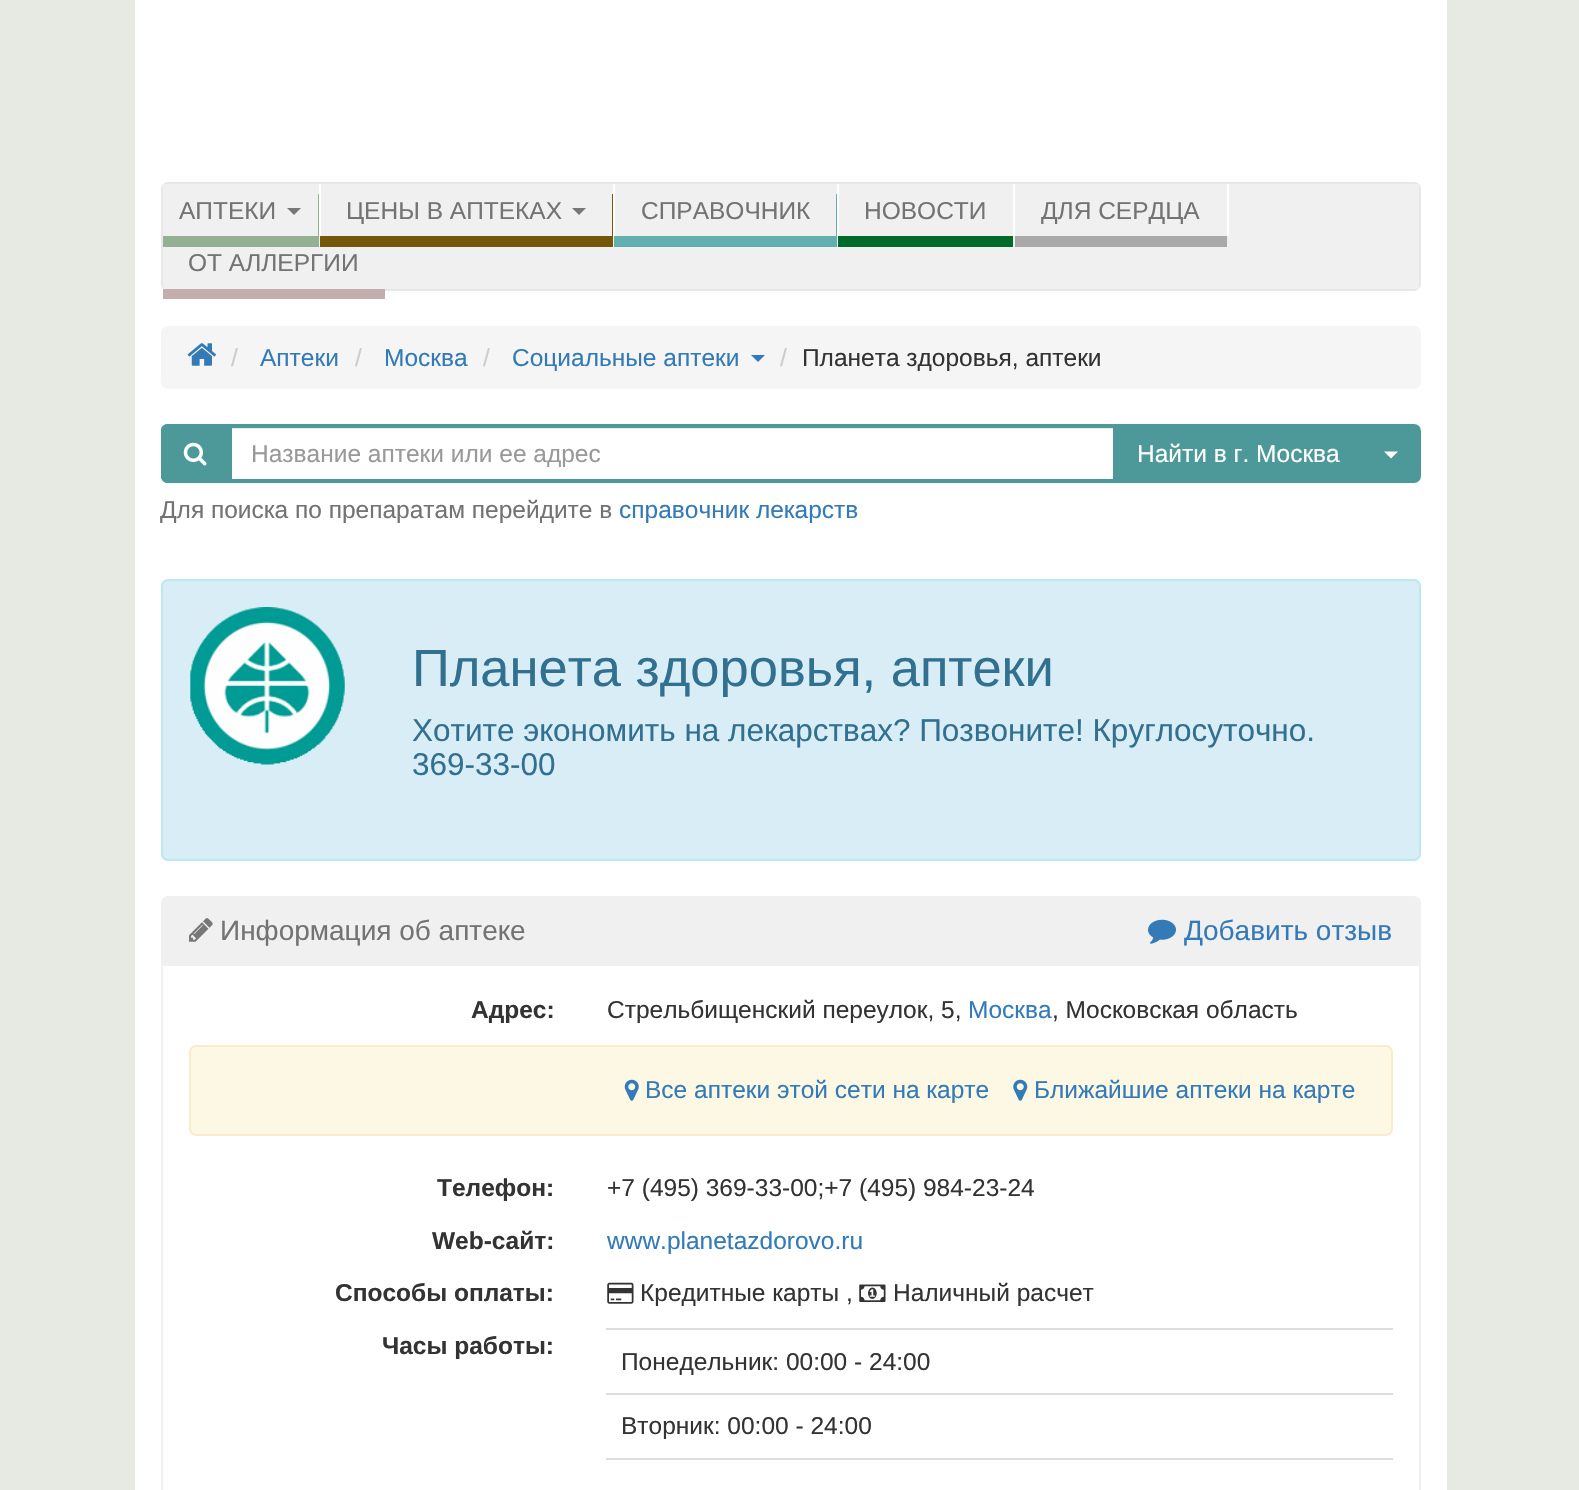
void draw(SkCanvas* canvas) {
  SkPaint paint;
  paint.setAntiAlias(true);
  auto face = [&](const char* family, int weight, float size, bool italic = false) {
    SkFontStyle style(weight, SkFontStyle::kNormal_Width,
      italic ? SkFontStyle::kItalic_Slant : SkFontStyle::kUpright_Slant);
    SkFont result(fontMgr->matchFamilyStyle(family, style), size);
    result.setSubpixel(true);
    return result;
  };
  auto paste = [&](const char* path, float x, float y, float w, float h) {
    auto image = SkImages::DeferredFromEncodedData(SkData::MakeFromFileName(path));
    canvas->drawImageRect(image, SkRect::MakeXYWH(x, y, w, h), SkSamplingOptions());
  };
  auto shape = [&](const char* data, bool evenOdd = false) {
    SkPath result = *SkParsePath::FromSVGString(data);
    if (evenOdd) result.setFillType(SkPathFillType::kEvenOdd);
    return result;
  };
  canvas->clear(0xffe7eae3);
  paint.setColor(0xffffffff);
  canvas->drawRect(SkRect::MakeXYWH(135, 0, 1312, 1490), paint);
  paint.setStroke(true);
  paint.setStrokeWidth(2);
  paint.setColor(0xffe7e7e7);
  canvas->drawRoundRect(SkRect::MakeXYWH(162, 183, 1258, 107), 6, 6, paint);
  paint.setStroke(false);
  paint.setColor(0xfff0f0f0);
  canvas->drawRect(SkRect::MakeXYWH(163, 184, 1256, 105), paint);
  paint.setColor(0xffffffff);
  canvas->drawRect(SkRect::MakeXYWH(319, 184, 2, 52), paint);
  paint.setColor(0xff94b092);
  canvas->drawPath(shape("M163 236V247H319V194H318V236Z"), paint);
  paint.setColor(0xff777777);
  canvas->drawPath(shape("M287 208H301L294 215Z"), paint);
  paint.setColor(0xffffffff);
  canvas->drawRect(SkRect::MakeXYWH(613, 184, 2, 52), paint);
  paint.setColor(0xff755709);
  canvas->drawPath(shape("M320 194V247H613V194H612V236H320Z"), paint);
  paint.setColor(0xff777777);
  canvas->drawPath(shape("M572 208H586L579 215Z"), paint);
  paint.setColor(0xffffffff);
  canvas->drawRect(SkRect::MakeXYWH(837, 184, 2, 52), paint);
  paint.setColor(0xff61afaf);
  canvas->drawPath(shape("M614 194V247H837V194H836V236H614Z"), paint);
  paint.setColor(0xffffffff);
  canvas->drawRect(SkRect::MakeXYWH(1013, 184, 2, 52), paint);
  paint.setColor(0xff006a28);
  canvas->drawPath(shape("M838 194V247H1013V236H838Z"), paint);
  paint.setColor(0xffffffff);
  canvas->drawRect(SkRect::MakeXYWH(1227, 184, 2, 52), paint);
  paint.setColor(0xffa9a9a9);
  canvas->drawPath(shape("M1015 236V247H1227V194V236Z"), paint);
  paint.setColor(0xffc4aead);
  canvas->drawRect(SkRect::MakeXYWH(163, 289, 222, 10), paint);
  paint.setColor(0xfff5f5f5);
  canvas->drawRoundRect(SkRect::MakeXYWH(161, 326, 1260, 63), 7, 7, paint);
  paste("img/1.png", 187, 343, 29, 23);
  paint.setColor(0xff337ab7);
  canvas->drawPath(shape("M751 355H765L758 362Z"), paint);
  paint.setColor(0xff4d9999);
  canvas->drawPath(shape("M168 424H228V483H168C164 483 161 480 161 476V431C161 427 164 424 168 424Z"), paint);
  canvas->drawPath(shape("M168 424H228V483H168C164 483 161 480 161 476V430C161 427 164 424 168 424ZM168 425H228V481H168C165 481 163 479 163 476V430C163 428 165 425 168 425Z", true), paint);
  paste("img/2.png", 183, 442, 24, 24);
  paint.setColor(0xffececec);
  canvas->drawRect(SkRect::MakeXYWH(231, 428, 882, 1), paint);
  paint.setStroke(true);
  paint.setStrokeWidth(4);
  paint.setColor(0xff4d9999);
  canvas->drawRect(SkRect::MakeXYWH(230, 426, 885, 55), paint);
  paint.setStroke(false);
  canvas->drawRect(SkRect::MakeXYWH(1117, 424, 245, 59), paint);
  canvas->drawPath(shape("M1363 425H1414C1417.5 425 1420 427.5 1420 431V476C1420 479.5 1417.5 482 1414 482H1363Z"), paint);
  paint.setStroke(true);
  paint.setStrokeWidth(2);
  canvas->drawPath(shape("M1363 425H1414C1417.5 425 1420 427.5 1420 431V476C1420 479.5 1417.5 482 1414 482H1363Z"), paint);
  paint.setStroke(false);
  paint.setColor(0xffffffff);
  canvas->drawPath(shape("M1384 451.5H1398L1391 458.5Z"), paint);
  paint.setColor(0xffd9edf7);
  canvas->drawRoundRect(SkRect::MakeXYWH(162, 580, 1258, 280), 6, 6, paint);
  paint.setStroke(true);
  paint.setColor(0xffbce8f1);
  canvas->drawRoundRect(SkRect::MakeXYWH(162, 580, 1258, 280), 6, 6, paint);
  paste("img/3.png", 190, 607, 155, 158);
  paint.setColor(0xfff0f0f0);
  canvas->drawRoundRect(SkRect::MakeXYWH(162, 897, 1258, 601), 6, 6, paint);
  paint.setStroke(false);
  canvas->drawPath(shape("M168 898H1414C1417 898 1419 900 1419 903V966H163V903C163 900 165 898 168 898Z"), paint);
  paste("img/4.png", 189, 918, 24, 24);
  paste("img/5.png", 1148, 919, 28, 25);
  paint.setColor(0xfffcf8e3);
  canvas->drawRoundRect(SkRect::MakeXYWH(190, 1046, 1202, 89), 6, 6, paint);
  paint.setStroke(true);
  paint.setColor(0xfffaebcc);
  canvas->drawRoundRect(SkRect::MakeXYWH(190, 1046, 1202, 89), 6, 6, paint);
  paste("img/6.png", 624, 1079, 15, 22);
  paste("img/7.png", 1013, 1079, 15, 22);
  paste("img/8.png", 607, 1282, 27, 22);
  paste("img/9.png", 859, 1284, 27, 18);
  paint.setStroke(false);
  {
    const struct { float x, y, w, h; SkColor color; } items[] = {
      {606, 1328, 787, 2, 0xffdddddd},
      {606, 1393, 787, 2, 0xffdddddd},
      {606, 1458, 787, 2, 0xffdddddd},
    };
    for (auto [x, y, w, h, color] : items) {
      paint.setColor(color);
      canvas->drawRect(SkRect::MakeXYWH(x, y, w, h), paint);
    }
  }
  auto f0 = face("Liberation Sans", 400, 24.5f);
  paint.setColor(0xff737373);
  {
    const struct { const char* s; float x, y; } items[] = {
      {"АПТЕКИ", 179, 219},
      {"ЦЕНЫ В АПТЕКАХ", 346, 219},
      {"СПРАВОЧНИК", 641, 219},
      {"НОВОСТИ", 864, 219},
      {"ДЛЯ СЕРДЦА", 1041, 219},
      {"ОТ АЛЛЕРГИИ", 188, 271},
    };
    for (auto [s, x, y] : items) {
      canvas->drawString(s, x, y, f0, paint);
    }
  }
  paint.setColor(0xffcccccc);
  canvas->drawString("/", 231, 366, f0, paint);
  paint.setColor(0xff337ab7);
  canvas->drawString("Аптеки", 260, 366, f0, paint);
  paint.setColor(0xffcccccc);
  canvas->drawString("/", 355, 366, f0, paint);
  paint.setColor(0xff337ab7);
  canvas->drawString("Москва", 384, 366, f0, paint);
  paint.setColor(0xffcccccc);
  canvas->drawString("/", 483, 366, f0, paint);
  paint.setColor(0xff337ab7);
  canvas->drawString("Социальные аптеки", 512, 366, f0, paint);
  paint.setColor(0xffcccccc);
  canvas->drawString("/", 780, 366, f0, paint);
  paint.setColor(0xff333333);
  canvas->drawString("Планета здоровья, аптеки", 802, 366, f0, paint);
  paint.setColor(0xff999999);
  canvas->drawString("Название аптеки или ее адрес", 251, 462, f0, paint);
  paint.setColor(0xffffffff);
  canvas->drawString("Найти в г. Москва", 1137, 462, f0, paint);
  paint.setColor(0xff737373);
  canvas->drawString("Для поиска по препаратам перейдите в", 160, 518, f0, paint);
  paint.setColor(0xff337ab7);
  canvas->drawString("справочник лекарств", 619, 518, f0, paint);
  auto f1 = face("Liberation Sans", 400, 52.5f);
  paint.setColor(0xff31708f);
  canvas->drawString("Планета здоровья, аптеки", 412, 686, f1, paint);
  auto f2 = face("Liberation Sans", 400, 31.5f);
  canvas->drawString("Хотите экономить на лекарствах? Позвоните! Круглосуточно.", 412, 741, f2, paint);
  canvas->drawString("369-33-00", 412, 775, f2, paint);
  auto f3 = face("Liberation Sans", 400, 28);
  paint.setColor(0xff737373);
  canvas->drawString("Информация об аптеке", 220, 940, f3, paint);
  paint.setColor(0xff337ab7);
  canvas->drawString("Добавить отзыв", 1184, 940, f3, paint);
  auto f4 = face("Liberation Sans", 700, 24.5f);
  paint.setColor(0xff333333);
  canvas->drawString("Адрес:", 471, 1018, f4, paint);
  canvas->drawString("Стрельбищенский переулок, 5,", 607, 1018, f0, paint);
  paint.setColor(0xff337ab7);
  canvas->drawString("Москва", 968, 1018, f0, paint);
  paint.setColor(0xff333333);
  canvas->drawString(", Московская область", 1052, 1018, f0, paint);
  paint.setColor(0xff337ab7);
  canvas->drawString("Все аптеки этой сети на карте", 645, 1098, f0, paint);
  canvas->drawString("Ближайшие аптеки на карте", 1034, 1098, f0, paint);
  paint.setColor(0xff333333);
  canvas->drawString("Телефон:", 437, 1196, f4, paint);
  canvas->drawString("+7 (495) 369-33-00;+7 (495) 984-23-24", 607, 1196, f0, paint);
  canvas->drawString("Web-сайт:", 432, 1249, f4, paint);
  paint.setColor(0xff337ab7);
  canvas->drawString("www.planetazdorovo.ru", 607, 1249, f0, paint);
  paint.setColor(0xff333333);
  canvas->drawString("Способы оплаты:", 335, 1301, f4, paint);
  canvas->drawString("Кредитные карты ,", 640, 1301, f0, paint);
  canvas->drawString("Наличный расчет", 893, 1301, f0, paint);
  canvas->drawString("Часы работы:", 382, 1354, f4, paint);
  canvas->drawString("Понедельник: 00:00 - 24:00", 621, 1370, f0, paint);
  canvas->drawString("Вторник: 00:00 - 24:00", 621, 1434, f0, paint);
}
